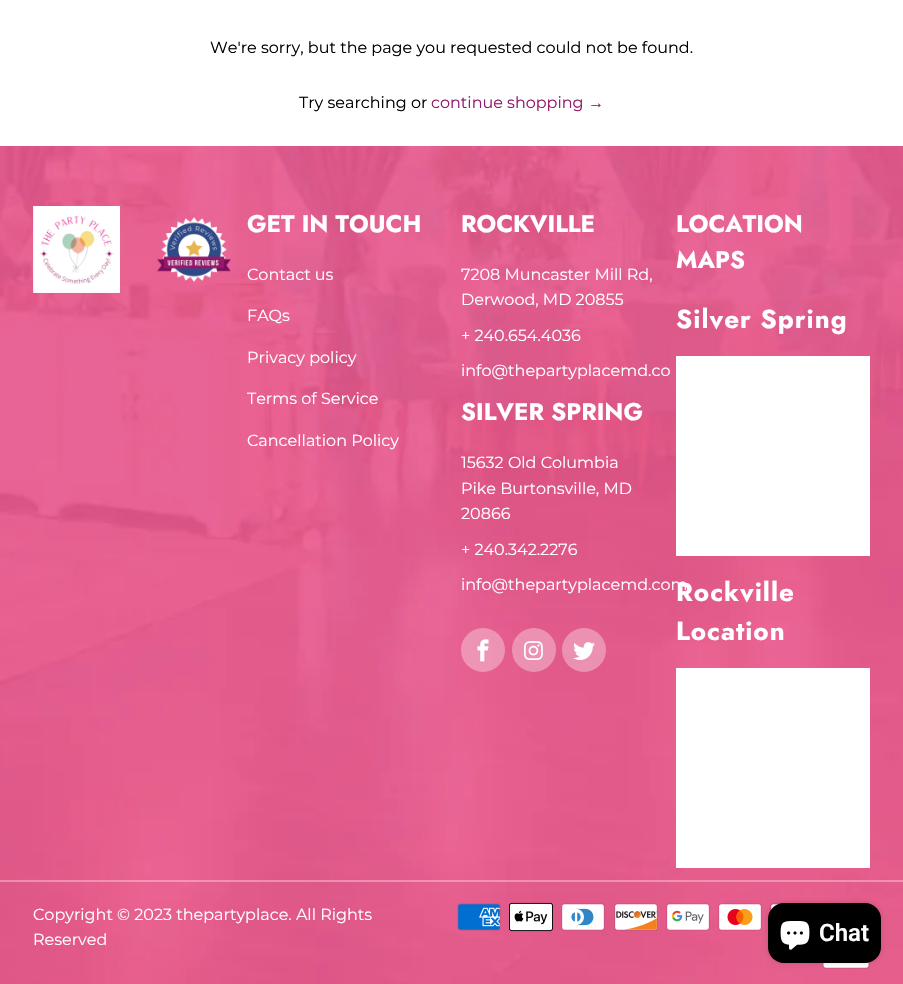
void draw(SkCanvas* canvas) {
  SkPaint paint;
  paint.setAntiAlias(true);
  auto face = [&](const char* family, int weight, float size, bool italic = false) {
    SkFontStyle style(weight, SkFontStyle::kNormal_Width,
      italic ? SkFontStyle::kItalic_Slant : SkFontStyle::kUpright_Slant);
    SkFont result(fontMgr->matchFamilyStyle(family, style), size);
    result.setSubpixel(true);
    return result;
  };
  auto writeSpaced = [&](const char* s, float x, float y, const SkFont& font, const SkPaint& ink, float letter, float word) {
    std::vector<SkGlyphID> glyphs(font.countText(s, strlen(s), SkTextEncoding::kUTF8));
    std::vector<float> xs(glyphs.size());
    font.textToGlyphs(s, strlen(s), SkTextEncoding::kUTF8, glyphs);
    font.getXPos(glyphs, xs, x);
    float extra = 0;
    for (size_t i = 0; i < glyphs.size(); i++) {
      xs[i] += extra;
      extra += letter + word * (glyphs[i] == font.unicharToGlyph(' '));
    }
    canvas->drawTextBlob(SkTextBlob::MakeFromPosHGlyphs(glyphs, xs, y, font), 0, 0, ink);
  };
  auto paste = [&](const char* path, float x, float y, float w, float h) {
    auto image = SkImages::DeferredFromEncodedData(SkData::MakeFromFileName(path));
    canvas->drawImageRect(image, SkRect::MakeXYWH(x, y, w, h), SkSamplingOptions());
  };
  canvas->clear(0xffffffff);
  paste("img/1.png", 0, 146, 903, 838);
  paste("img/2.png", 33, 206, 87, 87);
  paste("img/3.png", 157, 217, 74, 65);
  paint.setColor(0x54ffffff);
  canvas->drawCircle(483, 650, 22, paint);
  paste("img/4.png", 477, 639, 12, 23);
  canvas->drawCircle(534, 650, 22, paint);
  paste("img/5.png", 524, 641, 19, 19);
  canvas->drawCircle(584, 650, 22, paint);
  paste("img/6.png", 573, 642, 22, 18);
  {
    const struct { float x, y, w, h; SkColor color; } items[] = {
      {676, 356, 194, 200, 0xffffffff},
      {676, 668, 194, 200, 0xffffffff},
      {0, 880, 903, 2, 0x54ffffff},
    };
    for (auto [x, y, w, h, color] : items) {
      paint.setColor(color);
      canvas->drawRect(SkRect::MakeXYWH(x, y, w, h), paint);
    }
  }
  paste("img/7.png", 457, 903, 44, 28);
  paste("img/8.png", 509, 902, 44, 30);
  paste("img/9.png", 561, 903, 44, 28);
  paste("img/10.png", 614, 903, 44, 28);
  paste("img/11.png", 666, 903, 44, 28);
  paste("img/12.png", 718, 903, 44, 28);
  paste("img/13.png", 770, 903, 14, 9);
  paste("img/14.png", 865, 903, 1, 1);
  paste("img/15.png", 822, 962, 48, 7);
  paint.setColor(0x26000000);
  paint.setMaskFilter(SkMaskFilter::MakeBlur(kNormal_SkBlurStyle, 2.5f));
  canvas->drawRoundRect(SkRect::MakeXYWH(768, 903, 113, 60), 16, 16, paint);
  paint.setMaskFilter(nullptr);
  paint.setColor(0xff000000);
  canvas->drawRoundRect(SkRect::MakeXYWH(768, 903, 113, 60), 16, 16, paint);
  paste("img/16.png", 780, 921, 30, 29);
  auto f0 = face("Montserrat", 400, 16);
  canvas->drawString("We're sorry, but the page you requested could not be found.", 210, 53, f0, paint);
  canvas->drawString("Try searching or", 299, 108, f0, paint);
  paint.setColor(0xff94186a);
  canvas->drawString("continue shopping", 431, 108, f0, paint);
  auto f1 = face("Liberation Sans", 400, 16);
  canvas->drawString("→", 588, 108, f1, paint);
  auto f2 = face("Jost", 700, 24);
  paint.setColor(0xffffffff);
  canvas->drawString("GET IN TOUCH", 247, 232, f2, paint);
  {
    const struct { const char* s; float x, y; } items[] = {
      {"Contact us", 247, 280},
      {"FAQs", 247, 321},
      {"Privacy policy", 247, 363},
      {"Terms of Service", 247, 404},
      {"Cancellation Policy", 247, 446},
    };
    for (auto [s, x, y] : items) {
      canvas->drawString(s, x, y, f0, paint);
    }
  }
  canvas->drawString("ROCKVILLE", 461, 232, f2, paint);
  {
    const struct { const char* s; float x, y; } items[] = {
      {"7208 Muncaster Mill Rd,", 461, 280},
      {"Derwood, MD 20855", 461, 305},
      {"+ 240.654.4036", 461, 341},
      {"info@thepartyplacemd.co", 461, 376},
    };
    for (auto [s, x, y] : items) {
      canvas->drawString(s, x, y, f0, paint);
    }
  }
  canvas->drawString("SILVER SPRING", 461, 420, f2, paint);
  {
    const struct { const char* s; float x, y; } items[] = {
      {"15632 Old Columbia", 461, 468},
      {"Pike Burtonsville, MD", 461, 494},
      {"20866", 461, 519},
      {"+ 240.342.2276", 461, 555},
      {"info@thepartyplacemd.com", 461, 590},
    };
    for (auto [s, x, y] : items) {
      canvas->drawString(s, x, y, f0, paint);
    }
  }
  canvas->drawString("LOCATION", 676, 232, f2, paint);
  canvas->drawString("MAPS", 676, 268, f2, paint);
  auto f3 = face("Jost", 700, 26);
  {
    const struct { const char* s; float x, y; } items[] = {
      {"Silver Spring", 676, 328},
      {"Rockville", 676, 601},
      {"Location", 676, 640},
    };
    for (auto [s, x, y] : items) {
      writeSpaced(s, x, y, f3, paint, 1, 0);
    }
  }
  canvas->drawString("Copyright © 2023 thepartyplace. All Rights", 33, 920, f0, paint);
  canvas->drawString("Reserved", 33, 945, f0, paint);
  auto f4 = face("Roboto", 600, 24);
  canvas->drawString("Chat", 819, 941, f4, paint);
}
